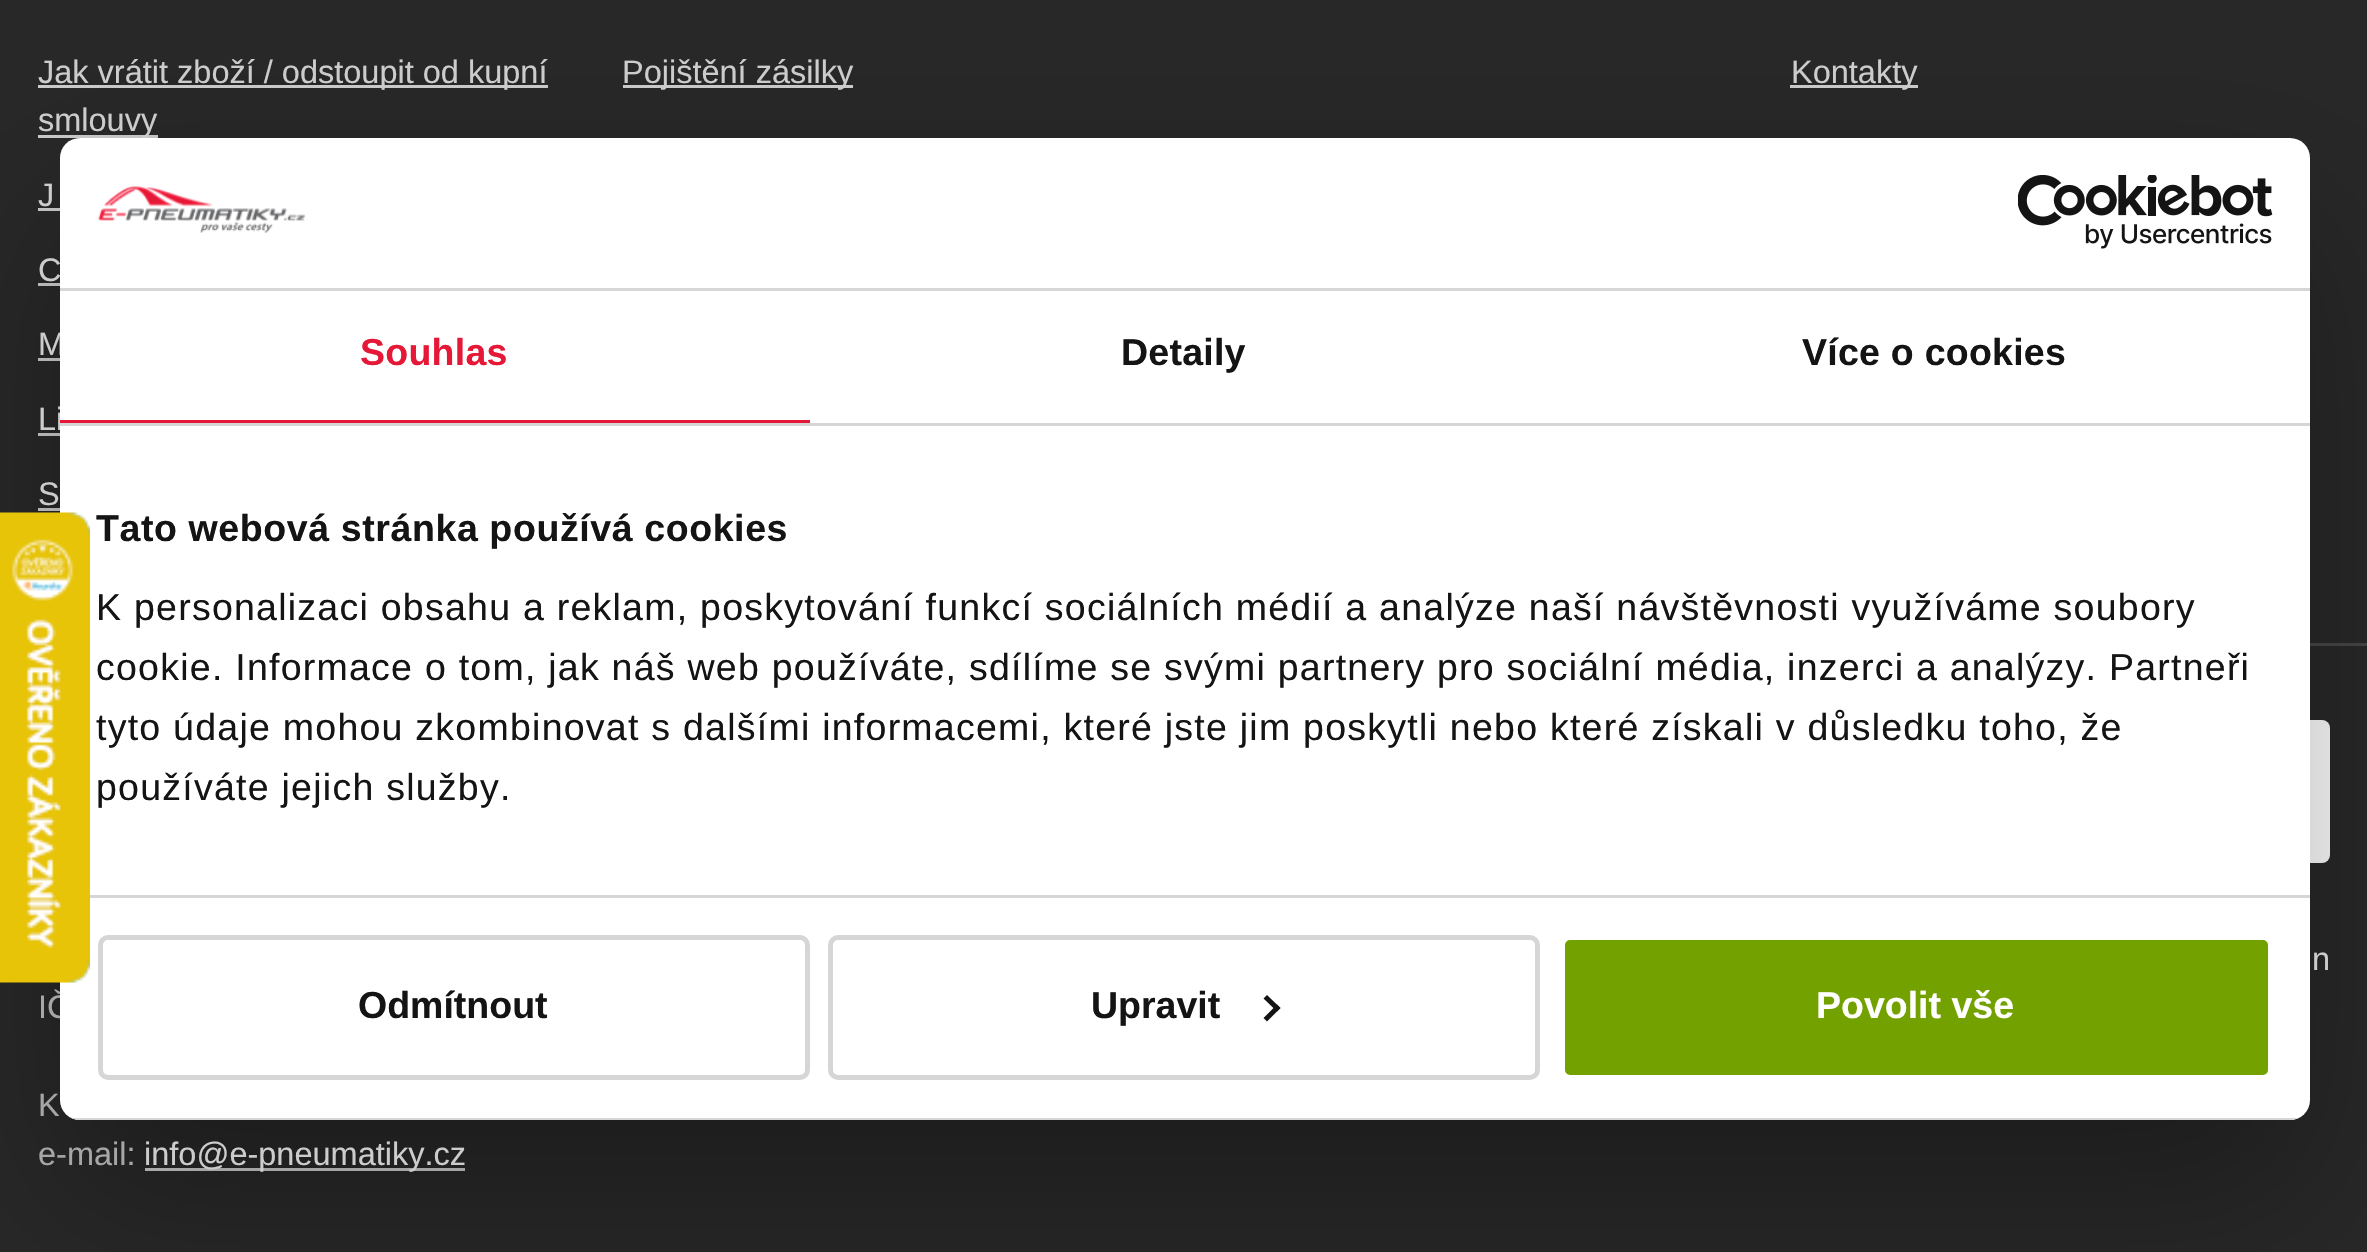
void draw(SkCanvas* canvas) {
  SkPaint paint;
  paint.setAntiAlias(true);
  auto face = [&](const char* family, int weight, float size, bool italic = false) {
    SkFontStyle style(weight, SkFontStyle::kNormal_Width,
      italic ? SkFontStyle::kItalic_Slant : SkFontStyle::kUpright_Slant);
    SkFont result(fontMgr->matchFamilyStyle(family, style), size);
    result.setSubpixel(true);
    return result;
  };
  auto writeSpaced = [&](const char* s, float x, float y, const SkFont& font, const SkPaint& ink, float letter, float word) {
    std::vector<SkGlyphID> glyphs(font.countText(s, strlen(s), SkTextEncoding::kUTF8));
    std::vector<float> xs(glyphs.size());
    font.textToGlyphs(s, strlen(s), SkTextEncoding::kUTF8, glyphs);
    font.getXPos(glyphs, xs, x);
    float extra = 0;
    for (size_t i = 0; i < glyphs.size(); i++) {
      xs[i] += extra;
      extra += letter + word * (glyphs[i] == font.unicharToGlyph(' '));
    }
    canvas->drawTextBlob(SkTextBlob::MakeFromPosHGlyphs(glyphs, xs, y, font), 0, 0, ink);
  };
  auto paste = [&](const char* path, float x, float y, float w, float h) {
    auto image = SkImages::DeferredFromEncodedData(SkData::MakeFromFileName(path));
    canvas->drawImageRect(image, SkRect::MakeXYWH(x, y, w, h), SkSamplingOptions());
  };
  auto shape = [&](const char* data, bool evenOdd = false) {
    SkPath result = *SkParsePath::FromSVGString(data);
    if (evenOdd) result.setFillType(SkPathFillType::kEvenOdd);
    return result;
  };
  canvas->clear(0xff282828);
  {
    const struct { float x, y, w, h; SkColor color; } items[] = {
      {2310, 643, 57, 3, 0xff464646},
      {38, 85, 510, 3, 0xffcccccc},
      {38, 135, 120, 3, 0xffcccccc},
      {38, 208, 22, 3, 0xffcccccc},
      {38, 283, 22, 3, 0xffcccccc},
      {38, 358, 22, 3, 0xffcccccc},
      {38, 433, 22, 3, 0xffcccccc},
      {38, 508, 22, 3, 0xffcccccc},
      {623, 85, 230, 3, 0xffcccccc},
      {1790, 85, 128, 3, 0xffcccccc},
    };
    for (auto [x, y, w, h, color] : items) {
      paint.setColor(color);
      canvas->drawRect(SkRect::MakeXYWH(x, y, w, h), paint);
    }
  }
  paint.setColor(0xffffffff);
  canvas->drawRoundRect(SkRect::MakeXYWH(38, 720, 2292, 143), 8, 8, paint);
  paint.setColor(0xffcccccc);
  canvas->drawRect(SkRect::MakeXYWH(145, 1168, 320, 3), paint);
  canvas->save();
  canvas->clipPath(shape("M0 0H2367V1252H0ZM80 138H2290C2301 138 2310 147 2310 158V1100C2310 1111 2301 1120 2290 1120H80C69 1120 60 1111 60 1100V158C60 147 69 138 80 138Z", true), true);
  paint.setColor(0x4d000000);
  paint.setMaskFilter(SkMaskFilter::MakeBlur(kNormal_SkBlurStyle, 85));
  canvas->drawRoundRect(SkRect::MakeXYWH(60, 218, 2250, 982), 20, 20, paint);
  paint.setMaskFilter(nullptr);
  canvas->restore();
  auto f0 = face("Liberation Sans", 400, 32.5f);
  paint.setColor(0xffcccccc);
  {
    const struct { const char* s; float x, y; } items[] = {
      {"Jak vrátit zboží / odstoupit od kupní", 38, 83},
      {"smlouvy", 38, 131},
      {"J", 38, 206},
      {"C", 38, 281},
      {"M", 38, 355},
      {"Li", 38, 430},
      {"S", 38, 505},
      {"Pojištění zásilky", 622, 83},
      {"Kontakty", 1791, 83},
      {"n", 2312, 970},
    };
    for (auto [s, x, y] : items) {
      canvas->drawString(s, x, y, f0, paint);
    }
  }
  paint.setColor(0xffa6a6a6);
  {
    const struct { const char* s; float x, y; } items[] = {
      {"IČ", 38, 1018},
      {"K", 38, 1116},
      {"e-mail:", 38, 1165},
    };
    for (auto [s, x, y] : items) {
      canvas->drawString(s, x, y, f0, paint);
    }
  }
  paint.setColor(0xffcccccc);
  canvas->drawString("info@e-pneumatiky.cz", 144, 1165, f0, paint);
  paint.setColor(0xffffffff);
  canvas->drawRoundRect(SkRect::MakeXYWH(60, 138, 2250, 982), 20, 20, paint);
  paste("img/1.png", 0, 512, 90, 471);
  paint.setColor(0xffd6d6d6);
  canvas->drawRect(SkRect::MakeXYWH(60, 288, 2250, 3), paint);
  paste("img/2.png", 98, 186, 207, 47);
  paste("img/3.png", 2018, 175, 255, 74);
  canvas->drawRect(SkRect::MakeXYWH(60, 423, 2250, 3), paint);
  paint.setColor(0xffe51937);
  canvas->drawRect(SkRect::MakeXYWH(60, 420, 750, 3), paint);
  auto f1 = face("Liberation Sans", 700, 37.5f);
  writeSpaced("Souhlas", 360, 365, f1, paint, 0.25f, 0);
  paint.setColor(0xff141414);
  writeSpaced("Detaily", 1121, 365, f1, paint, 0.25f, 0);
  writeSpaced("Více o cookies", 1802, 365, f1, paint, 0.25f, 0);
  paint.setColor(0xffd6d6d6);
  canvas->drawRect(SkRect::MakeXYWH(90, 895, 2220, 3), paint);
  paint.setColor(0xff141414);
  writeSpaced("Tato webová stránka používá cookies", 96, 541, f1, paint, 0.6f, 0);
  auto f2 = face("Liberation Sans", 400, 37.5f);
  {
    const struct { const char* s; float x, y; } items[] = {
      {"K personalizaci obsahu a reklam, poskytování funkcí sociálních médií a analýze naší návštěvnosti využíváme soubory", 96, 620},
      {"cookie. Informace o tom, jak náš web používáte, sdílíme se svými partnery pro sociální média, inzerci a analýzy. Partneři", 96, 680},
      {"tyto údaje mohou zkombinovat s dalšími informacemi, které jste jim poskytli nebo které získali v důsledku toho, že", 96, 740},
      {"používáte jejich služby.", 96, 800},
    };
    for (auto [s, x, y] : items) {
      writeSpaced(s, x, y, f2, paint, 1.25f, 0);
    }
  }
  canvas->save();
  canvas->clipPath(shape("M80 138H2290C2301 138 2310 147 2310 158V1100C2310 1111 2301 1120 2290 1120H80C69 1120 60 1111 60 1100V158C60 147 69 138 80 138Z"), true);
  paint.setColor(0xffd6d6d6);
  canvas->drawRect(SkRect::MakeXYWH(71, 1118, 2228, 2), paint);
  canvas->restore();
  paint.setStroke(true);
  paint.setStrokeWidth(5);
  canvas->drawRoundRect(SkRect::MakeXYWH(100.5f, 937.5f, 707, 140), 7.5f, 7.5f, paint);
  paint.setStroke(false);
  paint.setColor(0xff141414);
  canvas->drawString("Odmítnout", 358, 1018, f1, paint);
  paint.setStroke(true);
  paint.setColor(0xffd6d6d6);
  canvas->drawRoundRect(SkRect::MakeXYWH(830.5f, 937.5f, 707, 140), 7.5f, 7.5f, paint);
  paint.setStroke(false);
  paint.setColor(0xff141414);
  canvas->drawString("Upravit", 1091, 1018, f1, paint);
  canvas->drawPath(shape("M1267 995L1280.5 1008L1277 1011.5L1263.5 998.5Z"), paint);
  canvas->drawPath(shape("M1277 1004.5L1280.5 1008L1267 1021.5L1263.5 1018Z"), paint);
  paint.setColor(0xff73a200);
  canvas->drawRoundRect(SkRect::MakeXYWH(1562.5f, 937.5f, 708, 140), 7.5f, 7.5f, paint);
  paint.setStroke(true);
  paint.setColor(0xffffffff);
  canvas->drawRoundRect(SkRect::MakeXYWH(1562.5f, 937.5f, 708, 140), 7.5f, 7.5f, paint);
  paint.setStroke(false);
  canvas->drawString("Povolit vše", 1816, 1018, f1, paint);
}
